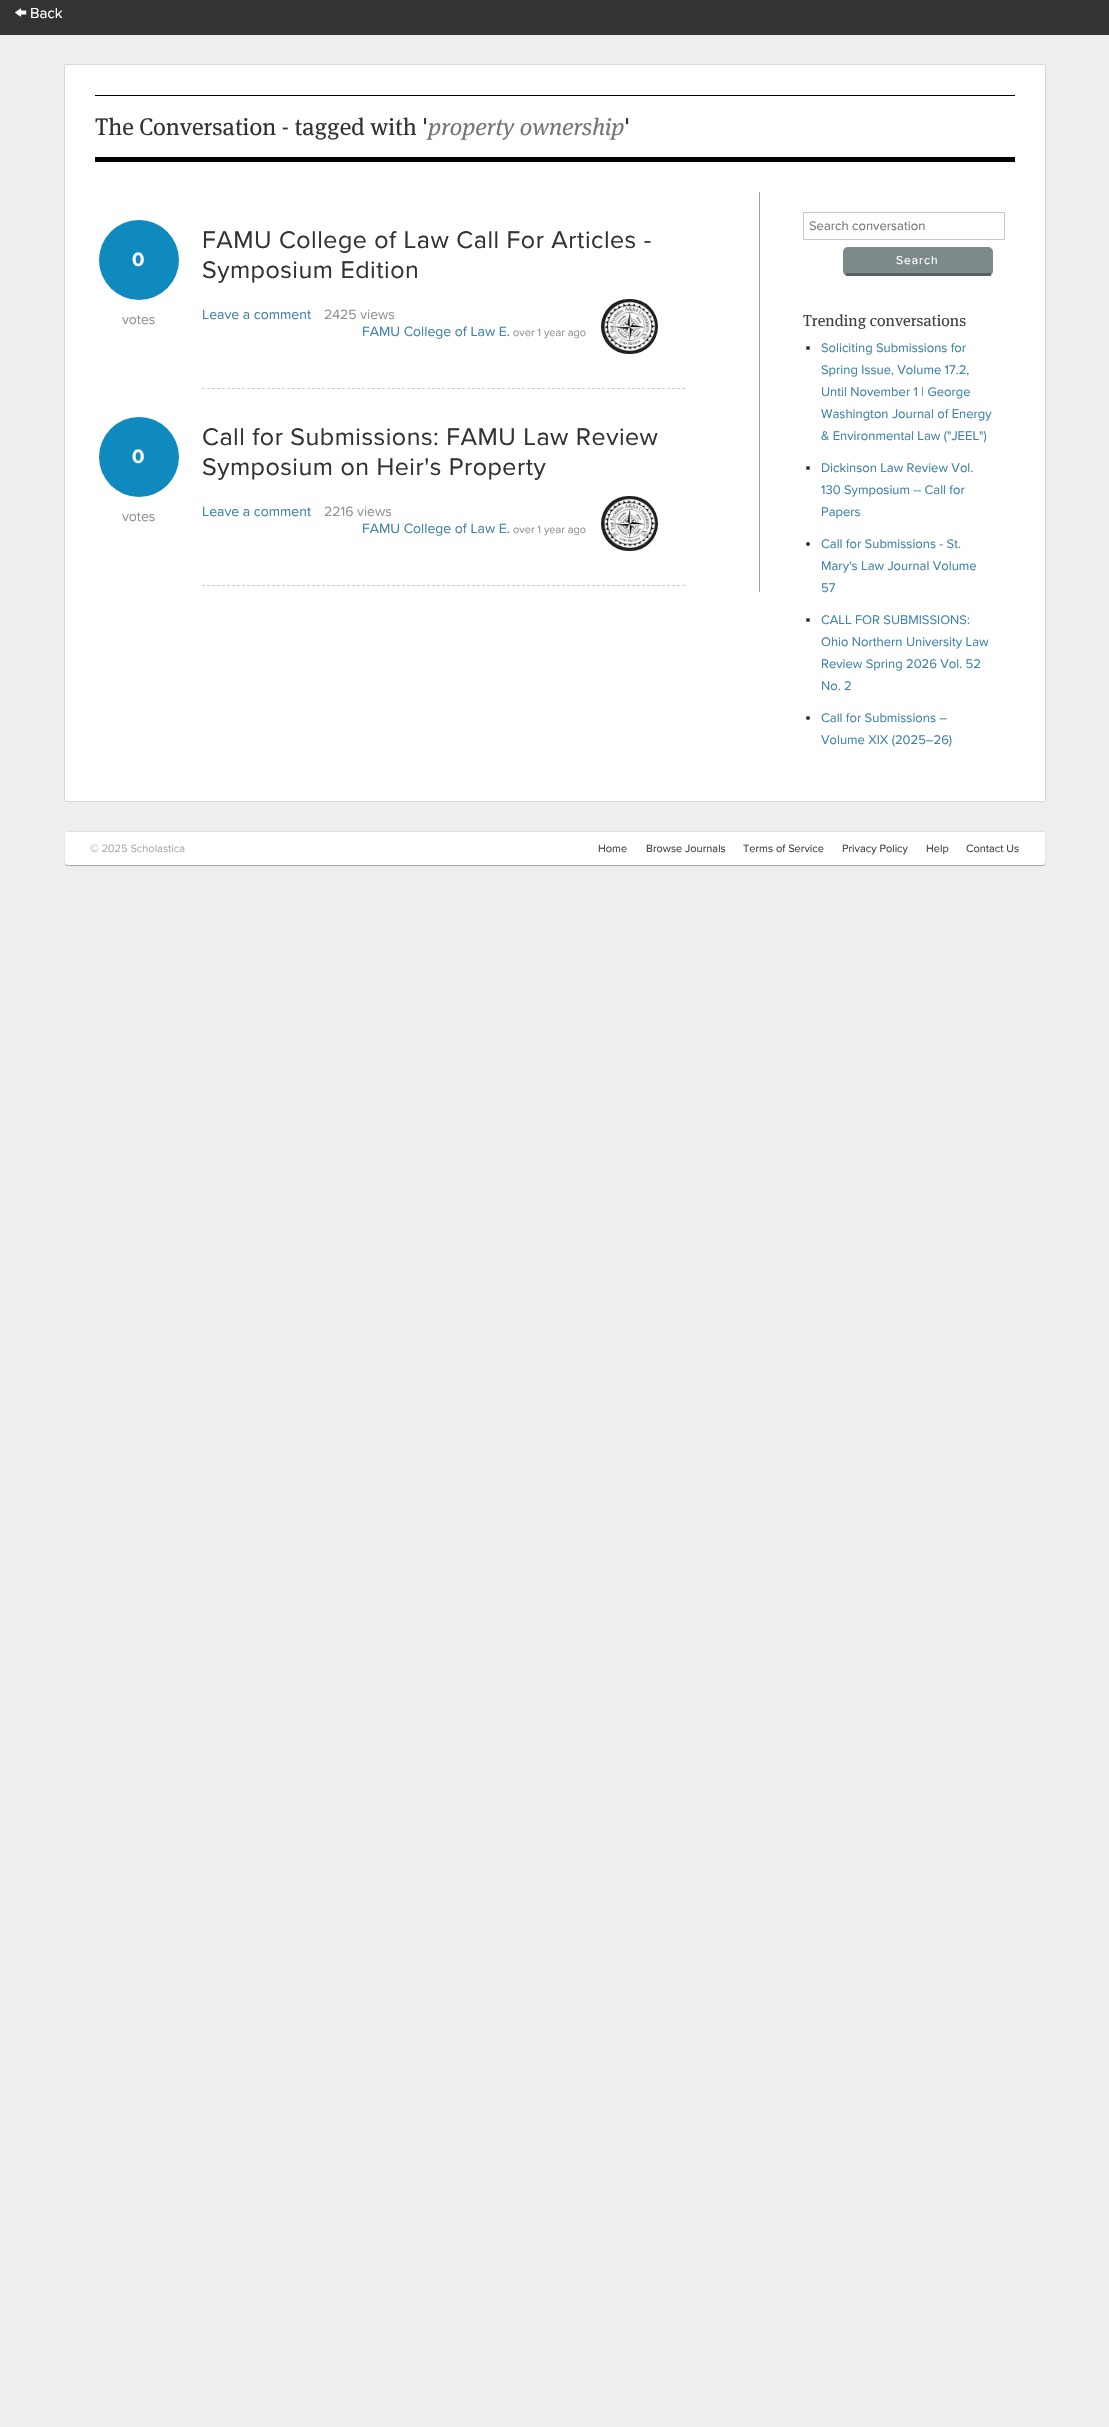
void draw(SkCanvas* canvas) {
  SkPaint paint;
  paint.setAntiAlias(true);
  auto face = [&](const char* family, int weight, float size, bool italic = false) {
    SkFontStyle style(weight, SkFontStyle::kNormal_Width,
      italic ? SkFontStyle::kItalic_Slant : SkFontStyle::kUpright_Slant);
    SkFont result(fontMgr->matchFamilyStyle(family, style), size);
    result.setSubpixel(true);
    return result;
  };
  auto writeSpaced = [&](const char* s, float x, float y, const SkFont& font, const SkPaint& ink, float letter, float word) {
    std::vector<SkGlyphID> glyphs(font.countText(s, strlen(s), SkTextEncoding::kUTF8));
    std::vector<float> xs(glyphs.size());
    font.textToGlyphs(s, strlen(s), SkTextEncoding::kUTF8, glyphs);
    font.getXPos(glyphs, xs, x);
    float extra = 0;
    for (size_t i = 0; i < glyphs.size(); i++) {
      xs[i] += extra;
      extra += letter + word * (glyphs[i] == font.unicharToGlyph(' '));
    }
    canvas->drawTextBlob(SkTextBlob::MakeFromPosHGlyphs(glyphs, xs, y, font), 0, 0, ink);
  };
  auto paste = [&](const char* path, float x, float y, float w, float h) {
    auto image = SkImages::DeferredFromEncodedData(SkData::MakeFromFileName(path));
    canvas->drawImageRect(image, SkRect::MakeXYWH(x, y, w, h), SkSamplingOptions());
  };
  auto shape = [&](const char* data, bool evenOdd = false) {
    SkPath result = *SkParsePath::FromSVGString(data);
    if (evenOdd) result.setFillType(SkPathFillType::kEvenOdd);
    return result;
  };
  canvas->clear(0xffeeeeee);
  paint.setColor(0xff333333);
  canvas->drawRect(SkRect::MakeXYWH(0, 0, 1109, 35), paint);
  paste("img/1.png", 15, 8, 12, 9);
  paint.setColor(0x80000000);
  paint.setMaskFilter(SkMaskFilter::MakeBlur(kNormal_SkBlurStyle, 0.5f));
  canvas->drawRect(SkRect::MakeXYWH(65, 65, 980, 736), paint);
  paint.setMaskFilter(nullptr);
  {
    const struct { float x, y, w, h; SkColor color; } items[] = {
      {65, 65, 980, 736, 0xffffffff},
      {95, 95, 920, 1, 0xff000000},
      {95, 157, 920, 5, 0xff000000},
      {759, 192, 1, 400, 0xffa1a1a1},
    };
    for (auto [x, y, w, h, color] : items) {
      paint.setColor(color);
      canvas->drawRect(SkRect::MakeXYWH(x, y, w, h), paint);
    }
  }
  paint.setStroke(true);
  paint.setStrokeWidth(1);
  paint.setColor(0xffcccccc);
  paint.setPathEffect(SkDashPathEffect::Make({{3, 2}}, 0));
  canvas->drawPath(shape("M202 388.5H685"), paint);
  paint.setPathEffect(nullptr);
  paint.setStroke(false);
  paint.setColor(0xff0e8abe);
  canvas->drawCircle(139, 260, 40, paint);
  paste("img/2.png", 601, 299, 57, 55);
  paint.setStroke(true);
  paint.setColor(0xffcccccc);
  paint.setPathEffect(SkDashPathEffect::Make({{3, 2}}, 0));
  canvas->drawPath(shape("M202 585.5H685"), paint);
  paint.setPathEffect(nullptr);
  paint.setStroke(false);
  paint.setColor(0xff0e8abe);
  canvas->drawCircle(139, 457, 40, paint);
  paste("img/2.png", 601, 496, 57, 55);
  paint.setStroke(true);
  paint.setColor(0xffc7c7c7);
  canvas->drawRect(SkRect::MakeXYWH(803.5f, 212.5f, 201, 27), paint);
  paint.setStroke(false);
  paint.setColor(0xff7c8a8b);
  canvas->drawRoundRect(SkRect::MakeXYWH(843, 247, 150, 29), 5, 5, paint);
  paint.setColor(0xff586263);
  canvas->drawRect(SkRect::MakeXYWH(846, 273, 145, 3), paint);
  paint.setColor(0xff333333);
  canvas->drawCircle(808, 348, 2, paint);
  canvas->drawCircle(808, 468, 2, paint);
  canvas->drawCircle(808, 544, 2, paint);
  canvas->drawCircle(808, 620, 2, paint);
  canvas->drawCircle(808, 718, 2, paint);
  paint.setColor(0x4d000000);
  paint.setMaskFilter(SkMaskFilter::MakeBlur(kNormal_SkBlurStyle, 0.5f));
  canvas->drawRoundRect(SkRect::MakeXYWH(65, 832, 980, 34), 3, 3, paint);
  paint.setMaskFilter(nullptr);
  paint.setColor(0xffffffff);
  canvas->drawRoundRect(SkRect::MakeXYWH(65, 831, 980, 34), 3, 3, paint);
  paint.setColor(0xffe0e0e0);
  canvas->drawRect(SkRect::MakeXYWH(67, 831, 977, 1), paint);
  auto f0 = face("Proxima Nova", 400, 15);
  paint.setColor(0xffffffff);
  canvas->drawString("Back", 30, 18, f0, paint);
  auto f1 = face("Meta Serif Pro", 400, 24);
  paint.setColor(0xff333333);
  canvas->drawString("The Conversation - tagged with '", 95, 135, f1, paint);
  auto f2 = face("Meta Serif Pro", 400, 24, true);
  paint.setColor(0xff777777);
  canvas->drawString("property ownership", 428, 135, f2, paint);
  paint.setColor(0xff333333);
  canvas->drawString("'", 624, 135, f1, paint);
  auto f3 = face("Proxima Nova", 700, 20);
  paint.setColor(0xffffffff);
  canvas->drawString("0", 132, 266, f3, paint);
  auto f4 = face("Proxima Nova", 400, 14);
  paint.setColor(0xff919191);
  canvas->drawString("votes", 122, 324, f4, paint);
  auto f5 = face("Proxima Nova", 400, 25);
  paint.setColor(0xff333333);
  writeSpaced("FAMU College of Law Call For Articles -", 202, 248, f5, paint, 0.5f, 0);
  writeSpaced("Symposium Edition", 202, 278, f5, paint, 0.5f, 0);
  paint.setColor(0xff4083a9);
  canvas->drawString("Leave a comment", 202, 319, f4, paint);
  paint.setColor(0xff919191);
  canvas->drawString("2425 views", 324, 319, f4, paint);
  paint.setColor(0xff4083a9);
  canvas->drawString("FAMU College of Law E.", 362, 336, f4, paint);
  auto f6 = face("Proxima Nova", 400, 11);
  paint.setColor(0xff919191);
  canvas->drawString("over 1 year ago", 513, 336, f6, paint);
  paint.setColor(0xffffffff);
  canvas->drawString("0", 132, 463, f3, paint);
  paint.setColor(0xff919191);
  canvas->drawString("votes", 122, 521, f4, paint);
  paint.setColor(0xff333333);
  writeSpaced("Call for Submissions: FAMU Law Review", 202, 445, f5, paint, 0.5f, 0);
  writeSpaced("Symposium on Heir's Property", 202, 475, f5, paint, 0.5f, 0);
  paint.setColor(0xff4083a9);
  canvas->drawString("Leave a comment", 202, 516, f4, paint);
  paint.setColor(0xff919191);
  canvas->drawString("2216 views", 324, 516, f4, paint);
  paint.setColor(0xff4083a9);
  canvas->drawString("FAMU College of Law E.", 362, 533, f4, paint);
  paint.setColor(0xff919191);
  canvas->drawString("over 1 year ago", 513, 533, f6, paint);
  auto f7 = face("Proxima Nova", 400, 13);
  paint.setColor(0xff777777);
  canvas->drawString("Search conversation", 809, 230, f7, paint);
  auto f8 = face("Proxima Nova", 400, 12);
  paint.setColor(0xffffffff);
  writeSpaced("Search", 896, 264, f8, paint, 1, 0);
  auto f9 = face("Meta Serif Pro", 400, 16);
  paint.setColor(0xff404040);
  canvas->drawString("Trending conversations", 803, 326, f9, paint);
  paint.setColor(0xff4083a9);
  {
    const struct { const char* s; float x, y; } items[] = {
      {"Soliciting Submissions for", 821, 352},
      {"Spring Issue, Volume 17.2,", 821, 374},
      {"Until November 1 | George", 821, 396},
      {"Washington Journal of Energy", 821, 418},
      {"& Environmental Law (\"JEEL\")", 821, 440},
      {"Dickinson Law Review Vol.", 821, 472},
      {"130 Symposium -- Call for", 821, 494},
      {"Papers", 821, 516},
      {"Call for Submissions - St.", 821, 548},
      {"Mary's Law Journal Volume", 821, 570},
      {"57", 821, 592},
      {"CALL FOR SUBMISSIONS:", 821, 624},
      {"Ohio Northern University Law", 821, 646},
      {"Review Spring 2026 Vol. 52", 821, 668},
      {"No. 2", 821, 690},
      {"Call for Submissions –", 821, 722},
      {"Volume XIX (2025–26)", 821, 744},
    };
    for (auto [s, x, y] : items) {
      canvas->drawString(s, x, y, f7, paint);
    }
  }
  paint.setColor(0xffaaaaaa);
  canvas->drawString("© 2025 Scholastica", 90, 852, f6, paint);
  paint.setColor(0xff404040);
  {
    const struct { const char* s; float x, y; } items[] = {
      {"Home", 598, 852},
      {"Browse Journals", 646, 852},
      {"Terms of Service", 743, 852},
      {"Privacy Policy", 842, 852},
      {"Help", 926, 852},
      {"Contact Us", 966, 852},
    };
    for (auto [s, x, y] : items) {
      canvas->drawString(s, x, y, f6, paint);
    }
  }
}
